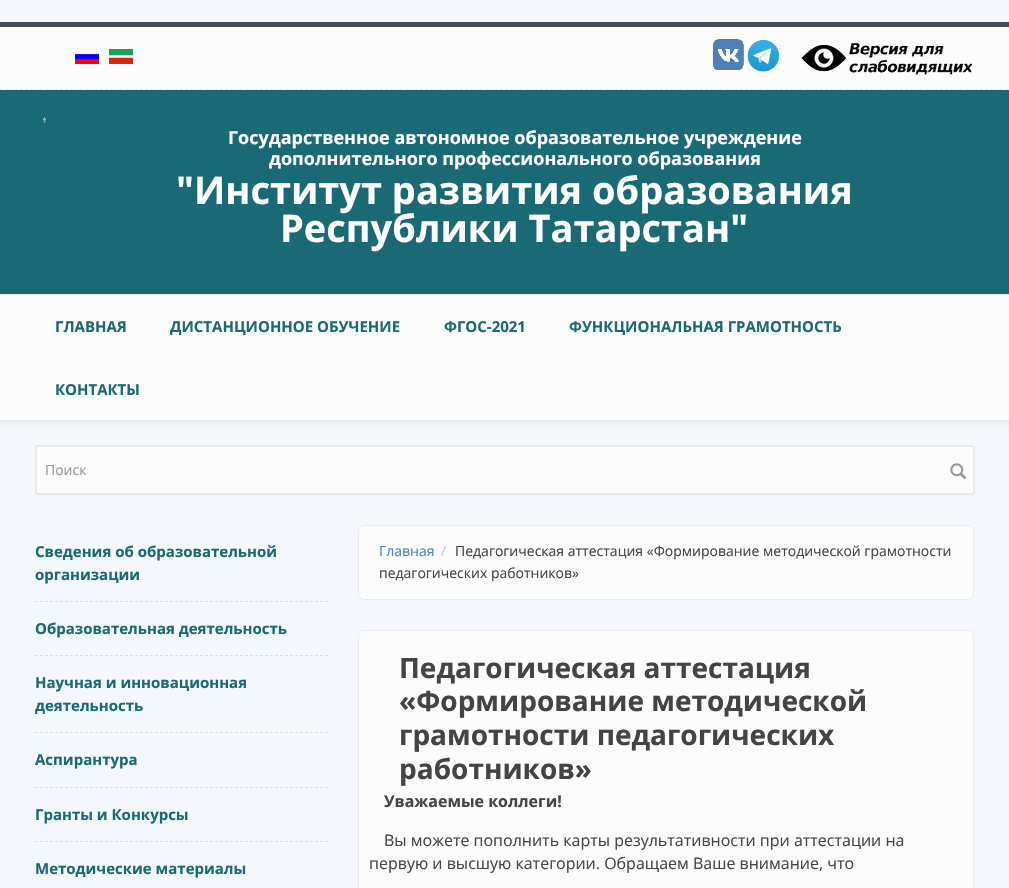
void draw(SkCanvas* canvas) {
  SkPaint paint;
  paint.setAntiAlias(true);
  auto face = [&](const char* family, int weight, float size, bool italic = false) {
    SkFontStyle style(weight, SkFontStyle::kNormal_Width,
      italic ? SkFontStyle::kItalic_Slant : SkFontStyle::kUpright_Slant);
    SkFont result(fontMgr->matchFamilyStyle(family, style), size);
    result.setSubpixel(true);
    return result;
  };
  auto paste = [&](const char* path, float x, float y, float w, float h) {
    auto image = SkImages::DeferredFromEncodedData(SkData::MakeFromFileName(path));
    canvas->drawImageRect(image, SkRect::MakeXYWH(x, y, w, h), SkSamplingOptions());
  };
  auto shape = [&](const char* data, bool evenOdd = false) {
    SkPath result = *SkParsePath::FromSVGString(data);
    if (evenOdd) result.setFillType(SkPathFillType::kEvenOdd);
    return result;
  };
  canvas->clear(0xfff4f7fb);
  paint.setColor(0xfffcfcfc);
  canvas->drawRect(SkRect::MakeXYWH(0, 27, 1009, 63), paint);
  paint.setColor(0xff454e59);
  canvas->drawRect(SkRect::MakeXYWH(0, 22, 1009, 5), paint);
  paint.setStroke(true);
  paint.setStrokeWidth(1);
  paint.setColor(0xffeaeaea);
  paint.setPathEffect(SkDashPathEffect::Make({{3, 2}}, 0));
  canvas->drawPath(shape("M0 89.5H1009"), paint);
  paint.setPathEffect(nullptr);
  paste("img/1.png", 75, 53, 24, 11);
  paste("img/2.png", 109, 49, 24, 15);
  paste("img/3.png", 712, 39, 32, 31);
  paste("img/4.png", 747, 39, 33, 33);
  paste("img/5.png", 801, 42, 172, 33);
  paint.setStroke(false);
  paint.setColor(0xff1a6a76);
  canvas->drawRect(SkRect::MakeXYWH(0, 90, 1009, 204), paint);
  paint.setColor(0xffeaeaea);
  canvas->drawRect(SkRect::MakeXYWH(0, 294, 1009, 1), paint);
  paste("img/6.png", 43, 117, 3, 6);
  paint.setColor(0xfff2f5f8);
  canvas->drawRect(SkRect::MakeXYWH(0, 420, 1009, 10), paint);
  paint.setColor(0x12000000);
  paint.setMaskFilter(SkMaskFilter::MakeBlur(kNormal_SkBlurStyle, 2));
  canvas->drawRect(SkRect::MakeXYWH(0, 297, 1009, 125), paint);
  paint.setMaskFilter(nullptr);
  paint.setColor(0xfffcfcfc);
  canvas->drawRect(SkRect::MakeXYWH(0, 295, 1009, 125), paint);
  canvas->drawRoundRect(SkRect::MakeXYWH(36, 446, 938, 48), 2, 2, paint);
  paint.setStroke(true);
  paint.setStrokeWidth(2);
  paint.setColor(0xffeaeaea);
  canvas->drawRoundRect(SkRect::MakeXYWH(36, 446, 938, 48), 2, 2, paint);
  paste("img/7.png", 950, 463, 17, 17);
  paint.setStrokeWidth(1);
  paint.setColor(0xffdddddd);
  paint.setPathEffect(SkDashPathEffect::Make({{3, 2}}, 0));
  canvas->drawPath(shape("M35 601.5H328"), paint);
  paint.setPathEffect(nullptr);
  paint.setPathEffect(SkDashPathEffect::Make({{3, 2}}, 0));
  canvas->drawPath(shape("M35 655.5H328"), paint);
  paint.setPathEffect(nullptr);
  paint.setPathEffect(SkDashPathEffect::Make({{3, 2}}, 0));
  canvas->drawPath(shape("M35 732.5H328"), paint);
  paint.setPathEffect(nullptr);
  paint.setPathEffect(SkDashPathEffect::Make({{3, 2}}, 0));
  canvas->drawPath(shape("M35 787.5H328"), paint);
  paint.setPathEffect(nullptr);
  paint.setPathEffect(SkDashPathEffect::Make({{3, 2}}, 0));
  canvas->drawPath(shape("M35 841.5H328"), paint);
  paint.setPathEffect(nullptr);
  paint.setStroke(false);
  paint.setColor(0xfffcfcfc);
  canvas->drawRoundRect(SkRect::MakeXYWH(358.5f, 525.5f, 615, 74), 5.5f, 5.5f, paint);
  paint.setStroke(true);
  paint.setColor(0xffeaeaea);
  canvas->drawRoundRect(SkRect::MakeXYWH(358.5f, 525.5f, 615, 74), 5.5f, 5.5f, paint);
  paint.setStroke(false);
  paint.setColor(0xfffcfcfc);
  canvas->drawRoundRect(SkRect::MakeXYWH(358.5f, 630.5f, 615, 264), 5.5f, 5.5f, paint);
  paint.setStroke(true);
  paint.setColor(0xffeaeaea);
  canvas->drawRoundRect(SkRect::MakeXYWH(358.5f, 630.5f, 615, 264), 5.5f, 5.5f, paint);
  auto f0 = face("Open Sans", 700, 18);
  paint.setStroke(false);
  paint.setColor(0xffffffff);
  canvas->drawString("Государственное автономное образовательное учреждение", 228, 144, f0, paint);
  canvas->drawString("дополнительного профессионального образования", 269, 165, f0, paint);
  auto f1 = face("Open Sans", 700, 38);
  canvas->drawString("\"Институт развития образования", 176, 204, f1, paint);
  canvas->drawString("Республики Татарстан\"", 280, 242, f1, paint);
  auto f2 = face("Open Sans", 700, 15);
  paint.setColor(0xff1a6a76);
  {
    const struct { const char* s; float x, y; } items[] = {
      {"ГЛАВНАЯ", 55, 332},
      {"ДИСТАНЦИОННОЕ ОБУЧЕНИЕ", 170, 332},
      {"ФГОС-2021", 444, 332},
      {"ФУНКЦИОНАЛЬНАЯ ГРАМОТНОСТЬ", 569, 332},
      {"КОНТАКТЫ", 55, 395},
    };
    for (auto [s, x, y] : items) {
      canvas->drawString(s, x, y, f2, paint);
    }
  }
  auto f3 = face("Open Sans", 400, 14);
  paint.setColor(0xff999999);
  canvas->drawString("Поиск", 45, 475, f3, paint);
  paint.setColor(0xff1a6a76);
  {
    const struct { const char* s; float x, y; } items[] = {
      {"Сведения об образовательной", 35, 557},
      {"организации", 35, 580},
      {"Образовательная деятельность", 35, 634},
      {"Научная и инновационная", 35, 688},
      {"деятельность", 35, 711},
      {"Аспирантура", 35, 765},
      {"Гранты и Конкурсы", 35, 820},
      {"Методические материалы", 35, 874},
    };
    for (auto [s, x, y] : items) {
      canvas->drawString(s, x, y, f2, paint);
    }
  }
  paint.setColor(0xff4484c7);
  canvas->drawString("Главная", 379, 556, f3, paint);
  paint.setColor(0xffcccccc);
  canvas->drawString("/", 441, 556, f3, paint);
  paint.setColor(0xff444444);
  canvas->drawString("Педагогическая аттестация «Формирование методической грамотности", 455, 556, f3, paint);
  canvas->drawString("педагогических работников»", 379, 578, f3, paint);
  auto f4 = face("Open Sans", 700, 28);
  {
    const struct { const char* s; float x, y; } items[] = {
      {"Педагогическая аттестация", 399, 678},
      {"«Формирование методической", 399, 711},
      {"грамотности педагогических", 399, 745},
      {"работников»", 399, 779},
    };
    for (auto [s, x, y] : items) {
      canvas->drawString(s, x, y, f4, paint);
    }
  }
  auto f5 = face("Open Sans", 700, 16);
  canvas->drawString("Уважаемые коллеги!", 384, 807, f5, paint);
  auto f6 = face("Open Sans", 400, 16);
  canvas->drawString("Вы можете пополнить карты результативности при аттестации на", 384, 846, f6, paint);
  canvas->drawString("первую и высшую категории. Обращаем Ваше внимание, что", 369, 869, f6, paint);
}
